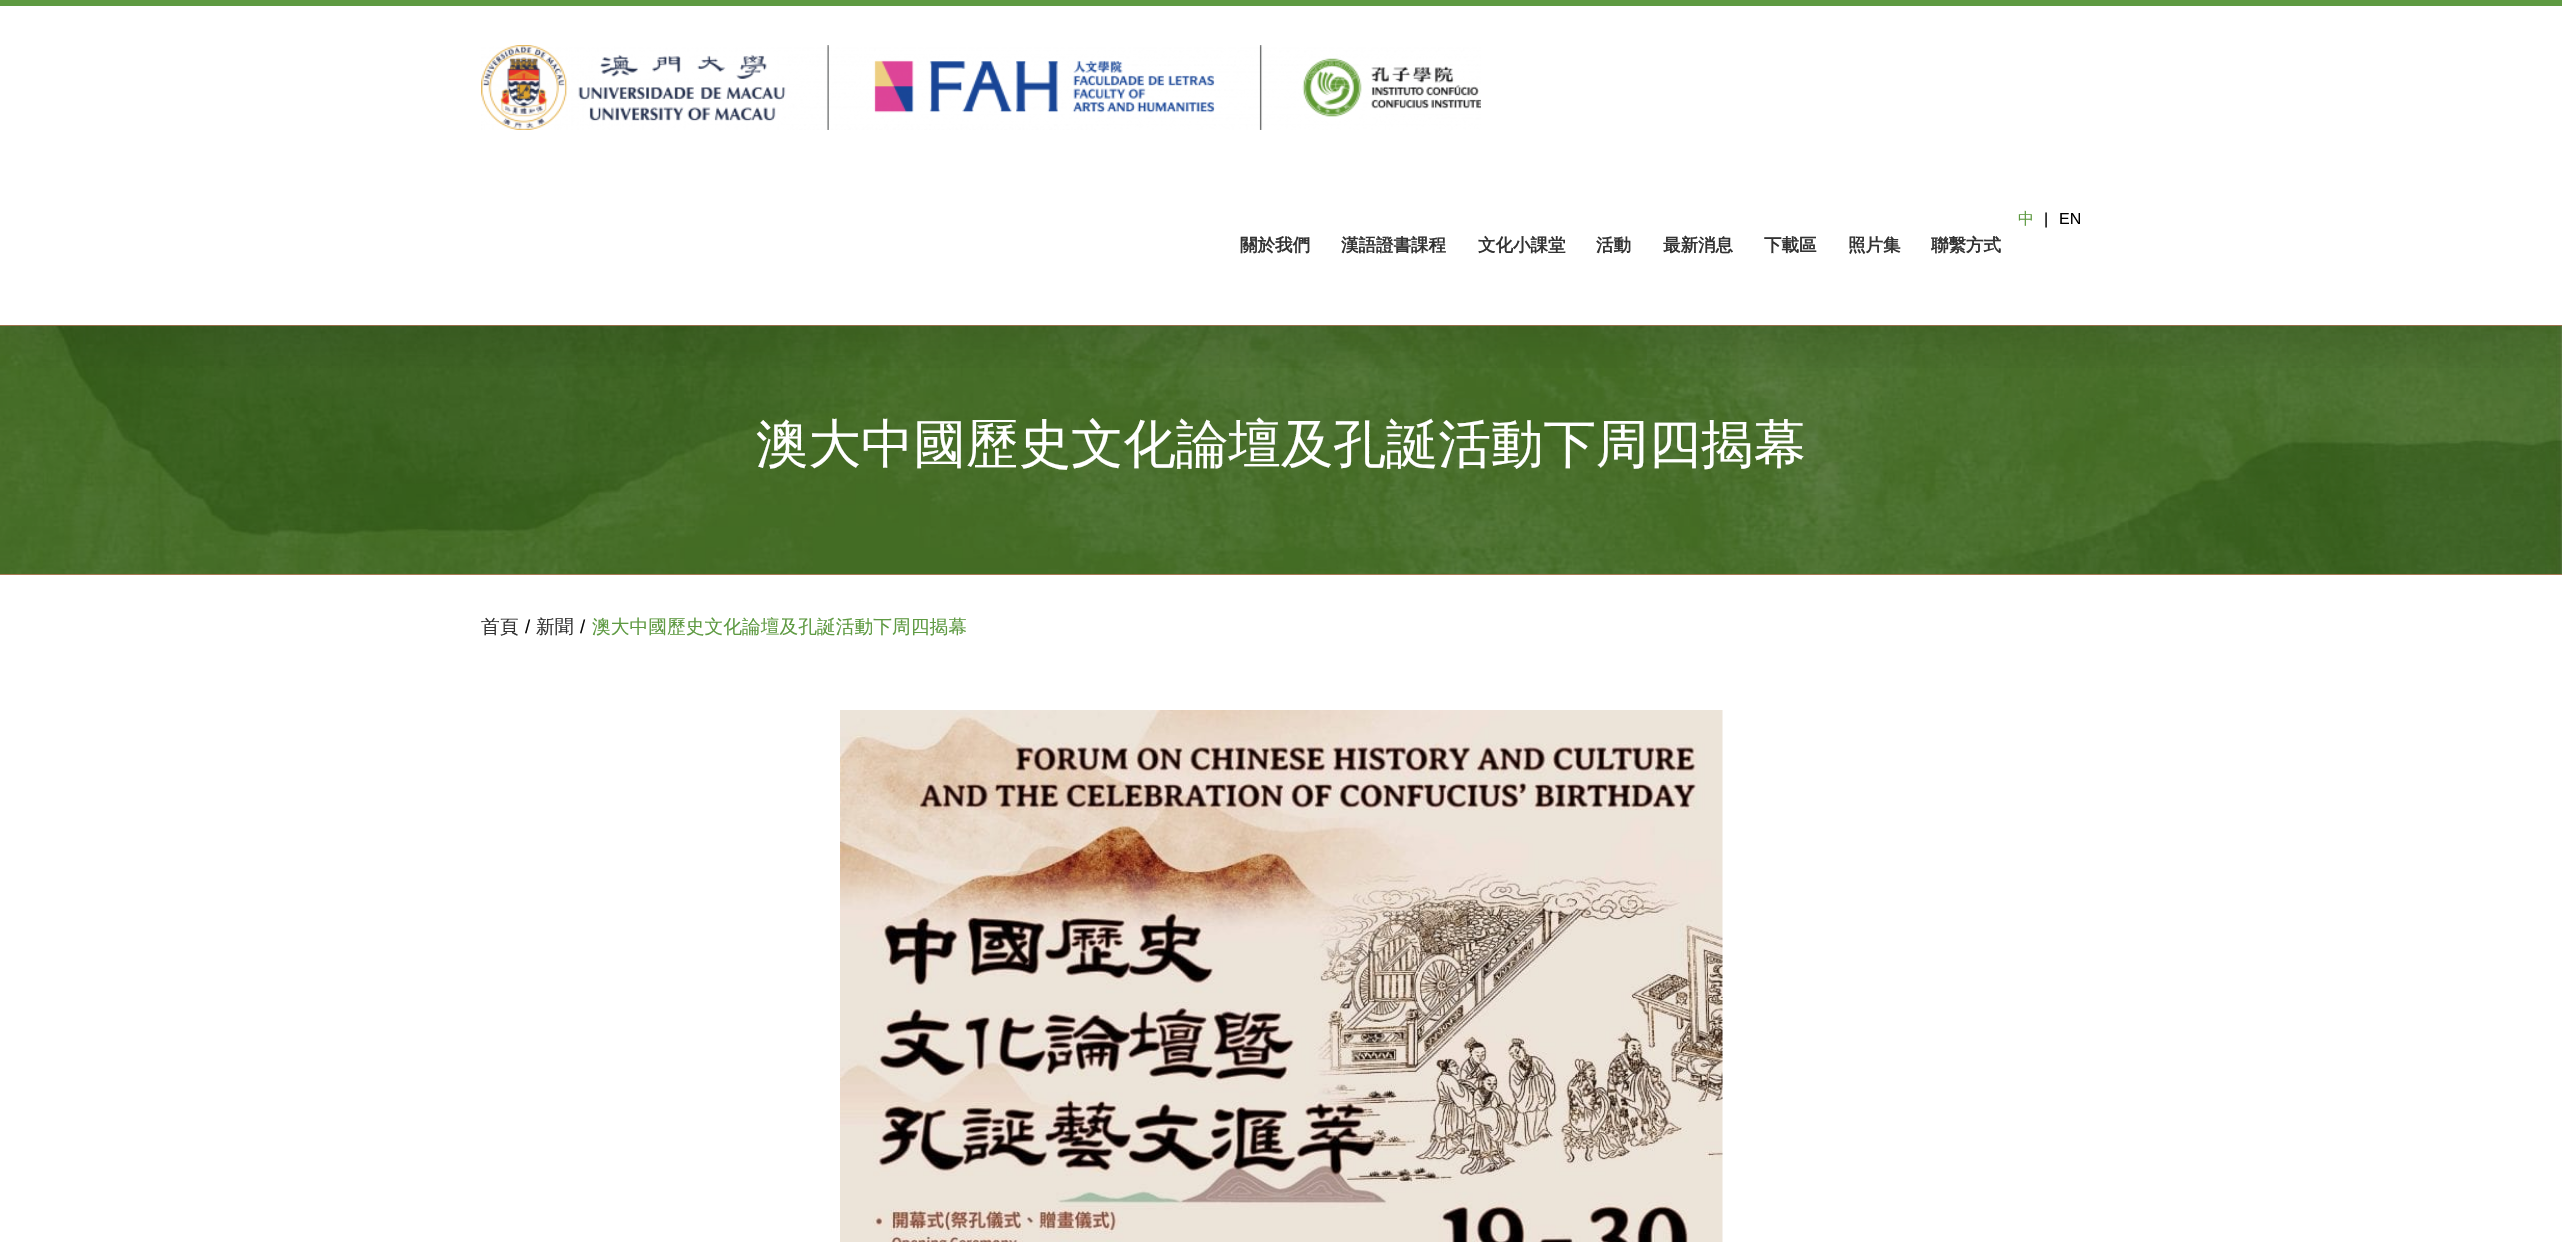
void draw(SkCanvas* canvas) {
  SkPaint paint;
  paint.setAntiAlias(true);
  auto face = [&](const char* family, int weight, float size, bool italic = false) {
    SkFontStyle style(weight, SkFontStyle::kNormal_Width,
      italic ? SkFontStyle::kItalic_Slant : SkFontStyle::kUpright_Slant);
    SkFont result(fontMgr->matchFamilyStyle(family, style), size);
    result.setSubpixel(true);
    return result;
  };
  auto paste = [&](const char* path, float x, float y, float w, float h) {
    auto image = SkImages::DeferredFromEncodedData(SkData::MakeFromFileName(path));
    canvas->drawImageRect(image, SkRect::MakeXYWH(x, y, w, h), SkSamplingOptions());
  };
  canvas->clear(0xffffffff);
  paste("img/2.png", 0, 326, 2562, 248);
  paint.setColor(0xffa77952);
  canvas->drawRect(SkRect::MakeXYWH(0, 325, 2562, 1), paint);
  canvas->save();
  canvas->clipRect(SkRect::MakeXYWH(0, 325, 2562, 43));
  paint.setColor(0x24000000);
  paint.setMaskFilter(SkMaskFilter::MakeBlur(kNormal_SkBlurStyle, 31));
  canvas->drawRect(SkRect::MakeXYWH(3, 15, 2557, 320), paint);
  paint.setMaskFilter(nullptr);
  canvas->restore();
  paint.setColor(0xff5e9a42);
  canvas->drawRect(SkRect::MakeXYWH(0, 0, 2562, 6), paint);
  paste("img/1.png", 481, 45, 1000, 85);
  paint.setColor(0xffa77952);
  canvas->drawRect(SkRect::MakeXYWH(0, 574, 2562, 1), paint);
  paste("img/3.png", 840, 710, 883, 532);
  auto f0 = face("WenQuanYi Zen Hei", 500, 16);
  paint.setColor(0xff5e9a42);
  canvas->drawString("中", 2018, 224, f0, paint);
  auto f1 = face("Liberation Sans", 400, 16);
  paint.setColor(0xff000000);
  canvas->drawString("|", 2044, 224, f1, paint);
  canvas->drawString("EN", 2059, 224, f1, paint);
  auto f2 = face("WenQuanYi Zen Hei", 700, 17.5f);
  paint.setColor(0xff333333);
  {
    const struct { const char* s; float x, y; } items[] = {
      {"關於我們", 1240, 251},
      {"漢語證書課程", 1341, 251},
      {"文化小課堂", 1478, 251},
      {"活動", 1596, 251},
      {"最新消息", 1663, 251},
      {"下載區", 1764, 251},
      {"照片集", 1848, 251},
      {"聯繫方式", 1931, 251},
    };
    for (auto [s, x, y] : items) {
      canvas->drawString(s, x, y, f2, paint);
    }
  }
  auto f3 = face("WenQuanYi Zen Hei", 500, 52.5f);
  paint.setColor(0xffffffff);
  canvas->drawString("澳大中國歷史文化論壇及孔誕活動下周四揭幕", 756, 462, f3, paint);
  auto f4 = face("WenQuanYi Zen Hei", 500, 18.75f);
  paint.setColor(0xff333333);
  canvas->drawString("首頁", 481, 633, f4, paint);
  auto f5 = face("Liberation Sans", 400, 18.75f);
  paint.setColor(0xff090909);
  canvas->drawString("/", 525, 633, f5, paint);
  paint.setColor(0xff333333);
  canvas->drawString("新聞", 536, 633, f4, paint);
  paint.setColor(0xff090909);
  canvas->drawString("/", 580, 633, f5, paint);
  paint.setColor(0xff5e9a42);
  canvas->drawString("澳大中國歷史文化論壇及孔誕活動下周四揭幕", 592, 633, f4, paint);
}
